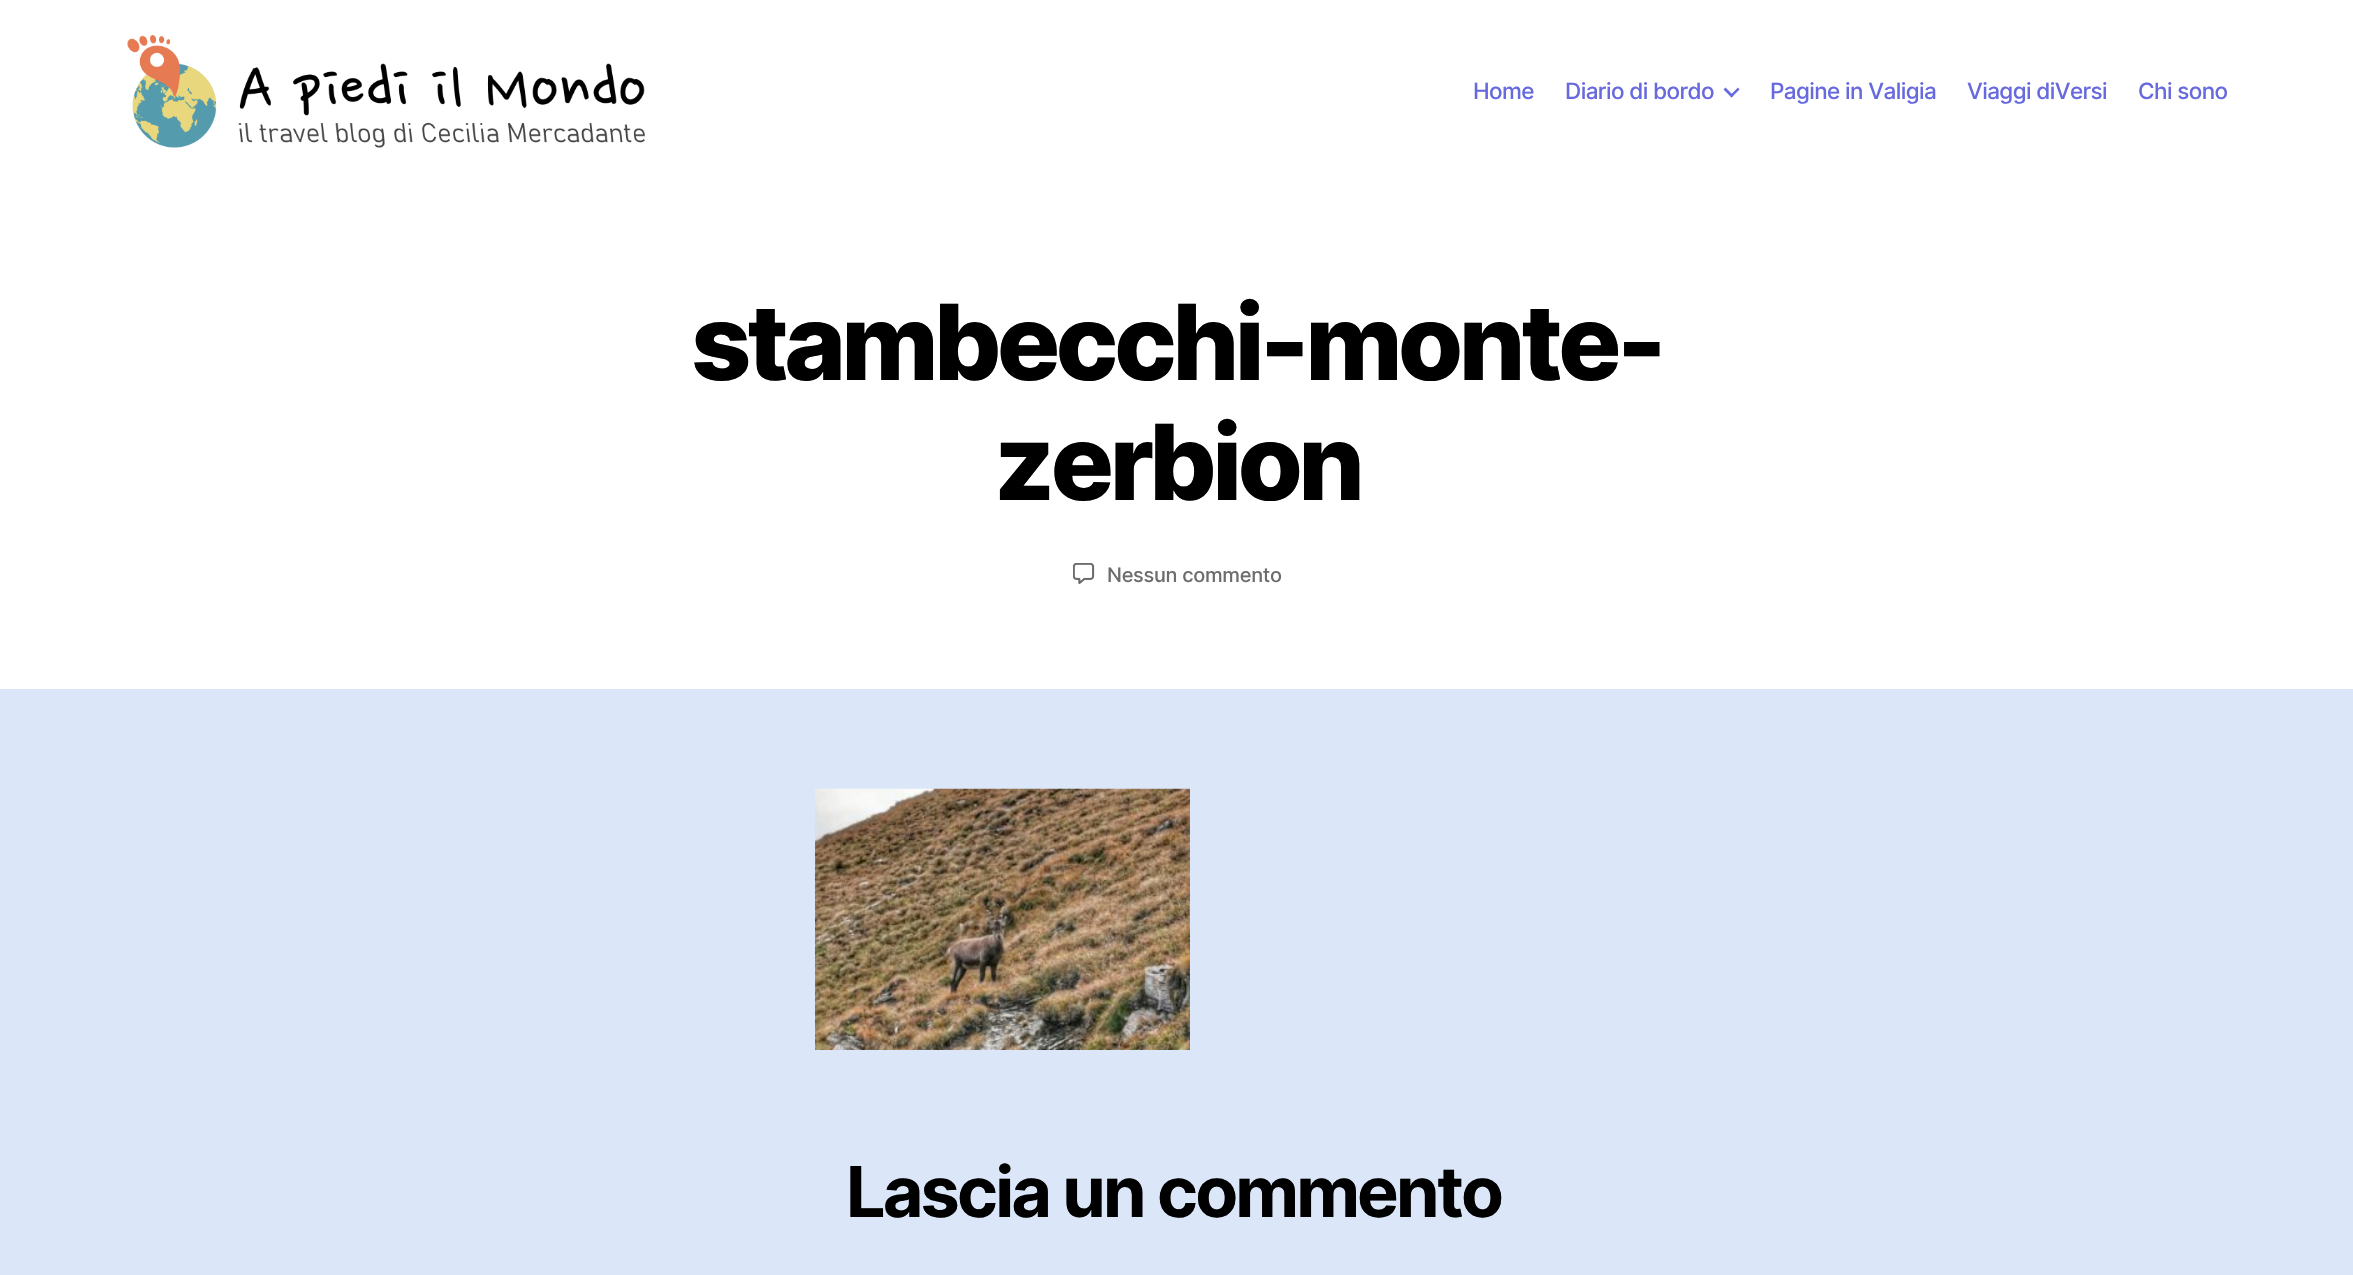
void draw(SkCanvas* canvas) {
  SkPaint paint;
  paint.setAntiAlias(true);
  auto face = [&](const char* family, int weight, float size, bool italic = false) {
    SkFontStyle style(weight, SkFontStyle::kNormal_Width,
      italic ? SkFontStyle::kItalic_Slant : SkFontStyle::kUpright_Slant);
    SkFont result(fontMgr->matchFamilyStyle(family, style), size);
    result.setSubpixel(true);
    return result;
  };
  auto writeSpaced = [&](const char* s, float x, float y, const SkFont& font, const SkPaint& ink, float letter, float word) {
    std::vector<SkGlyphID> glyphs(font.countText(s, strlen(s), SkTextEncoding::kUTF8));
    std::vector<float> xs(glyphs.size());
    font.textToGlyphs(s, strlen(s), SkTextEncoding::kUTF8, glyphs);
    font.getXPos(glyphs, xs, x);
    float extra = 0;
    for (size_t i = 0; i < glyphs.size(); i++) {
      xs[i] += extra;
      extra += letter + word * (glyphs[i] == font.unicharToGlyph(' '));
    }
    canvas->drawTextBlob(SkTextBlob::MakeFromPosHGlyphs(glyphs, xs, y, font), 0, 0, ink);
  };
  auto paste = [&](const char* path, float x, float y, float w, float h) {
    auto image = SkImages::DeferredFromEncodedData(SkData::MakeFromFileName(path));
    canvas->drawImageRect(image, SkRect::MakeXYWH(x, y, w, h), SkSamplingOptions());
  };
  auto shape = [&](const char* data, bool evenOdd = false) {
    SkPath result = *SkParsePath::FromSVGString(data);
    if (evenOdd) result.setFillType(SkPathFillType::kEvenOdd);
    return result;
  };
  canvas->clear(0xffdbe7f9);
  paint.setColor(0xffffffff);
  canvas->drawRect(SkRect::MakeXYWH(0, 0, 2353, 689), paint);
  paste("img/1.png", 127, 35, 518, 113);
  paint.setColor(0xff6769de);
  canvas->drawPath(shape("M1723.5 89.5L1725.5 87.5L1733.5 95.5L1731.5 97.5Z"), paint);
  canvas->drawPath(shape("M1730 95.5L1738 87.5L1739.5 89.5L1731.5 97.5Z"), paint);
  paste("img/2.png", 1073, 563, 22, 22);
  paste("img/3.png", 815, 788, 375, 262);
  auto f0 = face("Inter", 500, 22.5f);
  {
    const struct { const char* s; float x, y; } items[] = {
      {"Home", 1473, 99},
      {"Diario di bordo", 1565, 99},
      {"Pagine in Valigia", 1770, 99},
      {"Viaggi diVersi", 1967, 99},
      {"Chi sono", 2138, 99},
    };
    for (auto [s, x, y] : items) {
      writeSpaced(s, x, y, f0, paint, -0.6f, 0);
    }
  }
  auto f1 = face("Inter", 800, 105);
  paint.setColor(0xff000000);
  writeSpaced("stambecchi-monte-", 691, 380, f1, paint, -4.4f, 0);
  writeSpaced("zerbion", 994, 500, f1, paint, -4.4f, 0);
  auto f2 = face("Inter", 500, 20);
  paint.setColor(0xff6d6d6d);
  writeSpaced("Nessun commento", 1107, 582, f2, paint, -0.3f, 0);
  auto f3 = face("Inter", 700, 70);
  paint.setColor(0xff000000);
  writeSpaced("Lascia un commento", 846, 1217, f3, paint, -2.9f, 0);
}
